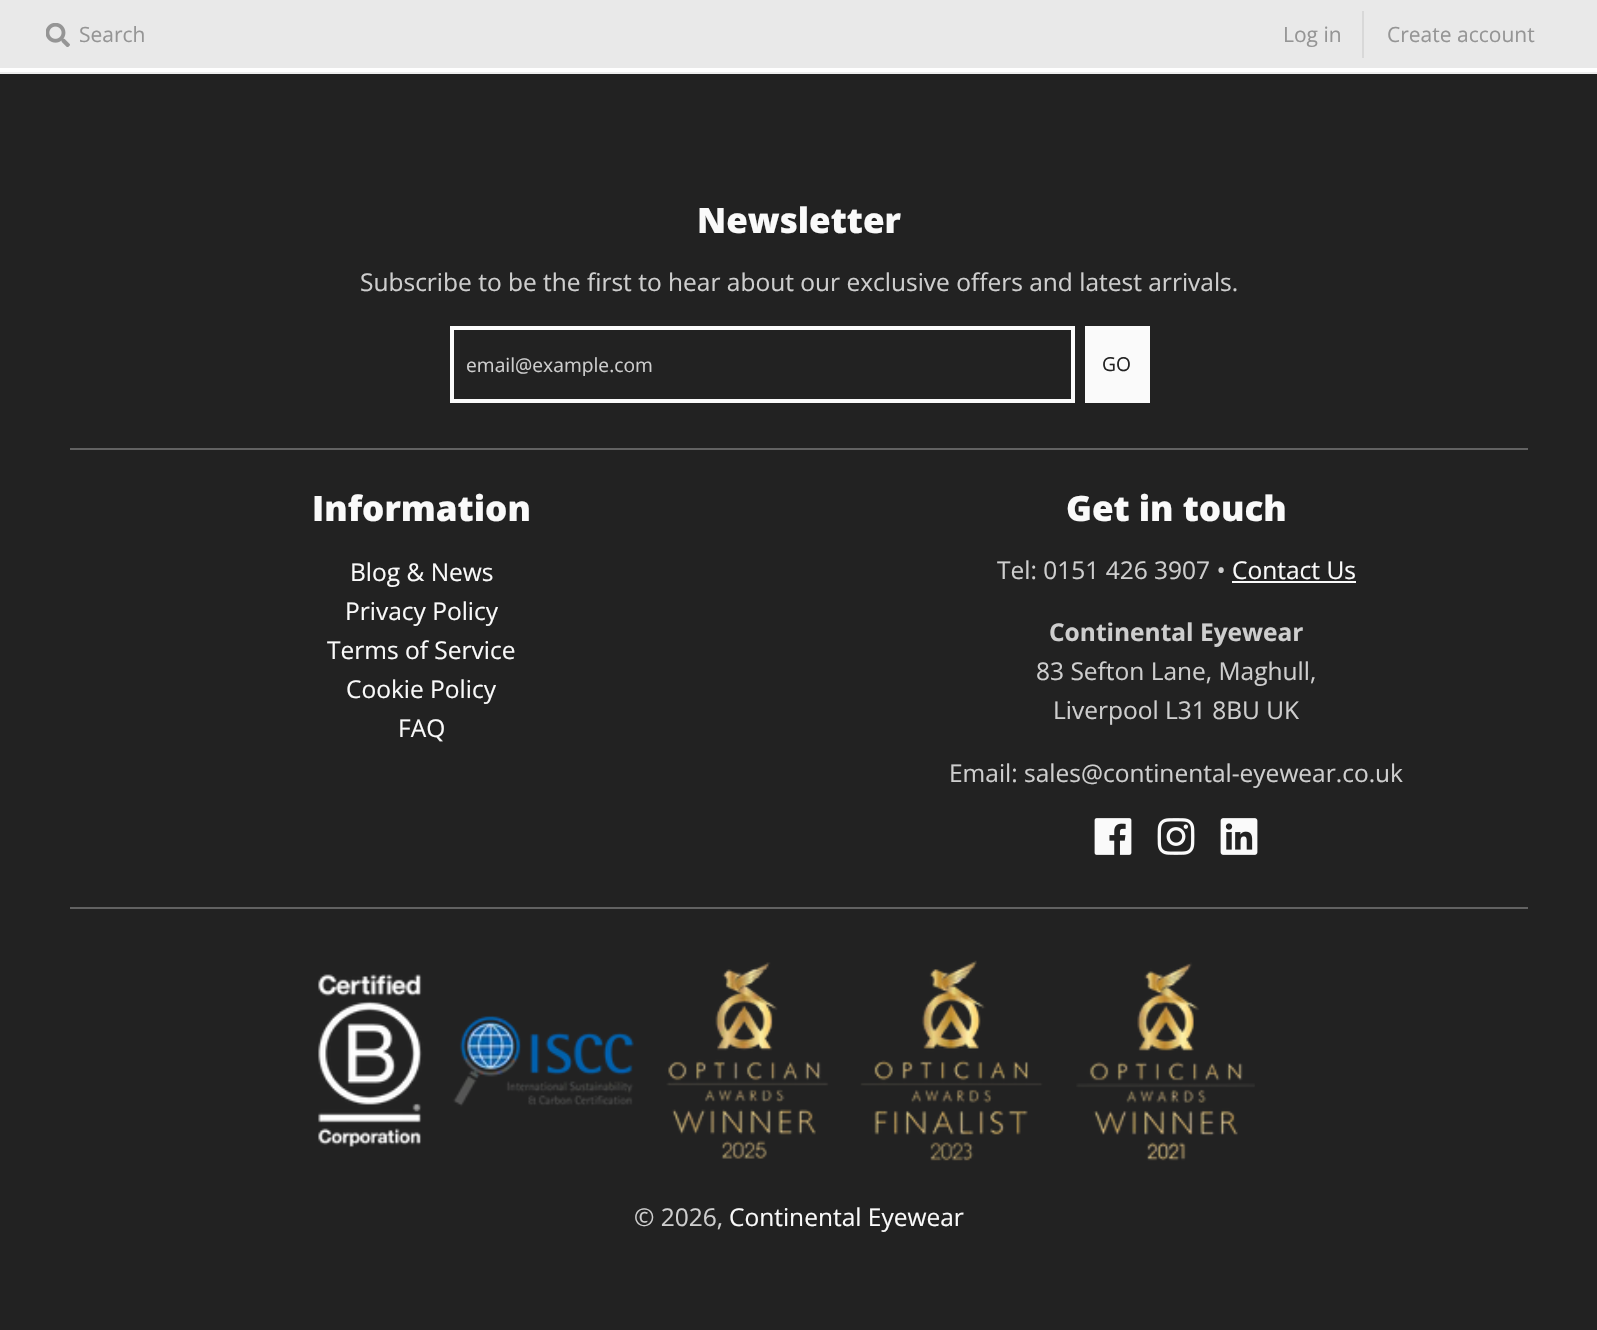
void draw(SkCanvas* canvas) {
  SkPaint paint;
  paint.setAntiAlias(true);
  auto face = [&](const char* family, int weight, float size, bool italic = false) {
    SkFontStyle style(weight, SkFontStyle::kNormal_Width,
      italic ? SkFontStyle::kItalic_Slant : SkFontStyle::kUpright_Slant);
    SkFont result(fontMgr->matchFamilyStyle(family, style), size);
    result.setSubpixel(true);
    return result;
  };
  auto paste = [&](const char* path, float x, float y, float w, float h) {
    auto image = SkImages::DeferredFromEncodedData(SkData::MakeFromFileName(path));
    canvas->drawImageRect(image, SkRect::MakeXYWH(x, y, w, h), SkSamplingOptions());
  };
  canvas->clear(0xffffffff);
  paint.setColor(0xffe9e9e9);
  canvas->drawRect(SkRect::MakeXYWH(0, 0, 1597, 68), paint);
  paste("img/1.png", 46, 23, 24, 24);
  {
    const struct { float x, y, w, h; SkColor color; } items[] = {
      {1362, 11, 2, 47, 0xffd8d8d8},
      {0, 72, 1597, 2, 0xffededed},
      {0, 74, 1597, 1256, 0xff222222},
      {70, 448, 1458, 2, 0xff626262},
    };
    for (auto [x, y, w, h, color] : items) {
      paint.setColor(color);
      canvas->drawRect(SkRect::MakeXYWH(x, y, w, h), paint);
    }
  }
  paint.setStroke(true);
  paint.setStrokeWidth(4);
  paint.setColor(0xfffafafa);
  canvas->drawRect(SkRect::MakeXYWH(452, 328, 621, 73), paint);
  paint.setStroke(false);
  canvas->drawRect(SkRect::MakeXYWH(1085, 326, 65, 77), paint);
  canvas->drawRect(SkRect::MakeXYWH(1232, 581, 124, 2), paint);
  paste("img/2.png", 1094, 818, 38, 37);
  paste("img/3.png", 1157, 818, 38, 37);
  paste("img/4.png", 1220, 818, 38, 37);
  paint.setColor(0xff626262);
  canvas->drawRect(SkRect::MakeXYWH(70, 907, 1458, 2), paint);
  paste("img/5.png", 318, 960, 937, 201);
  auto f0 = face("Open Sans", 400, 21);
  paint.setColor(0xff959595);
  {
    const struct { const char* s; float x, y; } items[] = {
      {"Search", 79, 42},
      {"Log in", 1283, 42},
      {"Create account", 1387, 42},
    };
    for (auto [s, x, y] : items) {
      canvas->drawString(s, x, y, f0, paint);
    }
  }
  auto f1 = face("Open Sans", 800, 35);
  paint.setColor(0xfffafafa);
  canvas->drawString("Newsletter", 697, 233, f1, paint);
  auto f2 = face("Open Sans", 400, 24.5f);
  paint.setColor(0xffcecece);
  canvas->drawString("Subscribe to be the first to hear about our exclusive offers and latest arrivals.", 360, 291, f2, paint);
  canvas->save();
  canvas->clipRect(SkRect::MakeXYWH(467, 350, 590, 26));
  auto f3 = face("Open Sans", 400, 19.25f);
  canvas->drawString("email@example.com", 466, 372, f3, paint);
  canvas->restore();
  paint.setColor(0xff222222);
  canvas->drawString("GO", 1102, 371, f3, paint);
  paint.setColor(0xfffafafa);
  canvas->drawString("Information", 312, 521, f1, paint);
  {
    const struct { const char* s; float x, y; } items[] = {
      {"Blog & News", 350, 581},
      {"Privacy Policy", 345, 620},
      {"Terms of Service", 327, 659},
      {"Cookie Policy", 346, 698},
      {"FAQ", 398, 737},
    };
    for (auto [s, x, y] : items) {
      canvas->drawString(s, x, y, f2, paint);
    }
  }
  canvas->drawString("Get in touch", 1066, 521, f1, paint);
  paint.setColor(0xffcecece);
  canvas->drawString("Tel: 0151 426 3907 •", 997, 579, f2, paint);
  paint.setColor(0xfffafafa);
  canvas->drawString("Contact Us", 1232, 579, f2, paint);
  auto f4 = face("Open Sans", 700, 24.5f);
  paint.setColor(0xffcecece);
  canvas->drawString("Continental Eyewear", 1049, 641, f4, paint);
  {
    const struct { const char* s; float x, y; } items[] = {
      {"83 Sefton Lane, Maghull,", 1036, 680},
      {"Liverpool L31 8BU UK", 1053, 719},
      {"Email: sales@continental-eyewear.co.uk", 949, 782},
      {"© 2026,", 634, 1226},
    };
    for (auto [s, x, y] : items) {
      canvas->drawString(s, x, y, f2, paint);
    }
  }
  paint.setColor(0xfffafafa);
  canvas->drawString("Continental Eyewear", 729, 1226, f2, paint);
}
